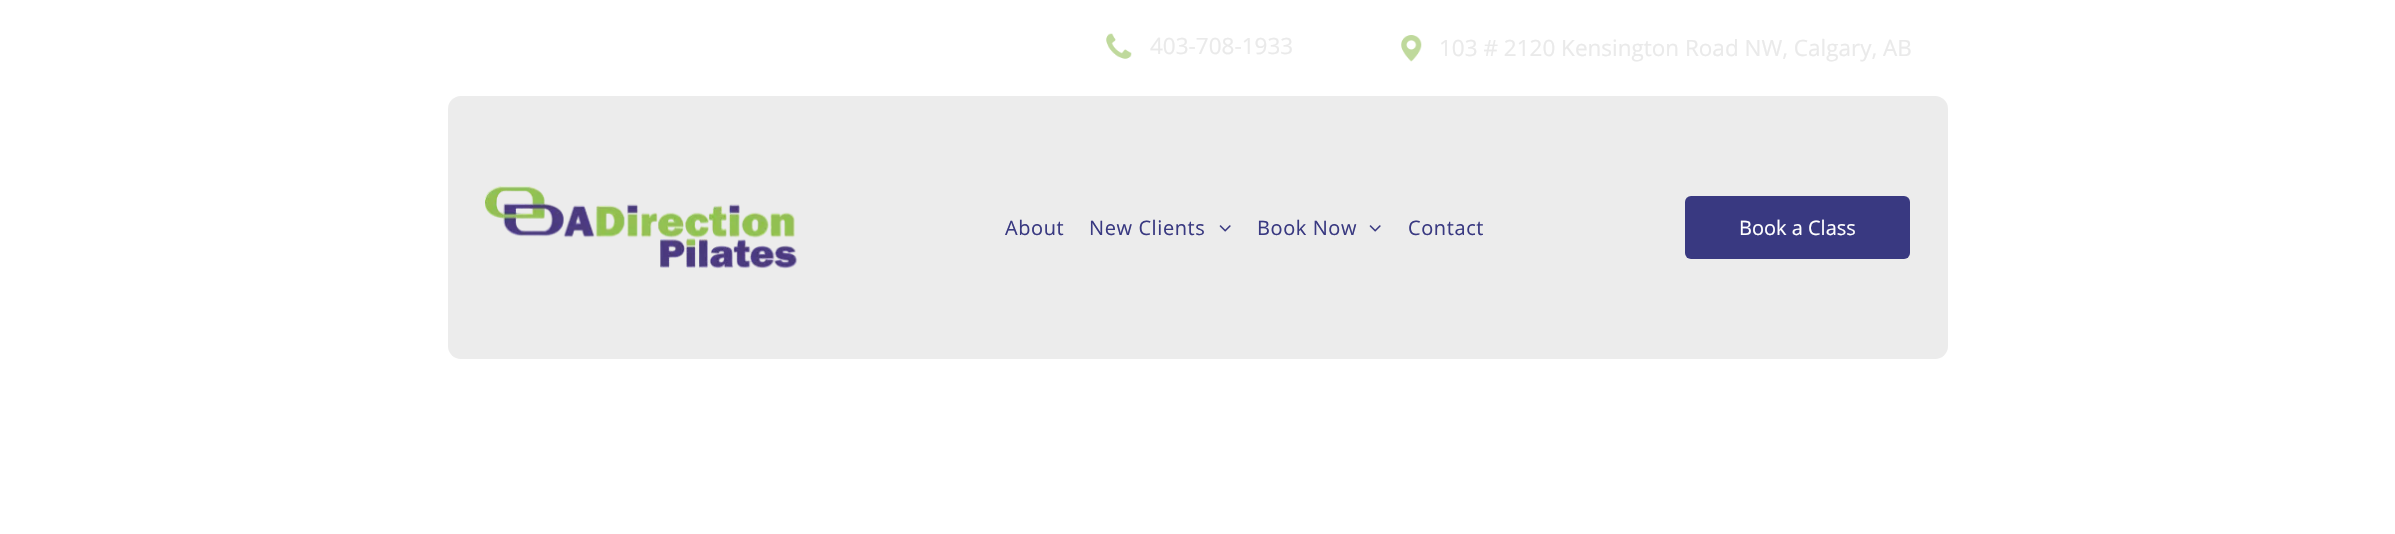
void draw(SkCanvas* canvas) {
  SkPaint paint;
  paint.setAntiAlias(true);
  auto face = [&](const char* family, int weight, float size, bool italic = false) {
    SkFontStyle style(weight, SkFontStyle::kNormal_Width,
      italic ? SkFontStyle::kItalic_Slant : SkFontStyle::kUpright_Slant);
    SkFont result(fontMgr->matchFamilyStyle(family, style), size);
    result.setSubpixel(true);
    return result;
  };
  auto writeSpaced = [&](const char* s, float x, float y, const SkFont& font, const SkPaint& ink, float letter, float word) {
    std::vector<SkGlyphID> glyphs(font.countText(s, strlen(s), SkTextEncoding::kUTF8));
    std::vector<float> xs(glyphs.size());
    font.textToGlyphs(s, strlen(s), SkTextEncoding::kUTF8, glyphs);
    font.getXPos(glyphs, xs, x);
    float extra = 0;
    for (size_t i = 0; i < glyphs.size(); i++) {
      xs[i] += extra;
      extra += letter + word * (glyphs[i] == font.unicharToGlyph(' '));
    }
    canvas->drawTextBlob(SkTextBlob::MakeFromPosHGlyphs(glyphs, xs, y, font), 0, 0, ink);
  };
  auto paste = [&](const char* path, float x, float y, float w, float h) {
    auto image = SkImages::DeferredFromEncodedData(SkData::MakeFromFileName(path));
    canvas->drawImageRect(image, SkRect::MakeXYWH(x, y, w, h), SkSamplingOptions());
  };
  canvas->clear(0xffffffff);
  paste("img/1.png", 1106, 33, 26, 26);
  paste("img/2.png", 1401, 35, 21, 27);
  paint.setColor(0xffececec);
  canvas->drawRoundRect(SkRect::MakeXYWH(448, 96, 1500, 263), 13, 13, paint);
  paste("img/3.png", 485, 186, 313, 83);
  paste("img/4.png", 1219, 225, 12, 7);
  paste("img/4.png", 1369, 225, 12, 7);
  paint.setColor(0xff393981);
  canvas->drawRoundRect(SkRect::MakeXYWH(1685, 196, 225, 63), 6, 6, paint);
  auto f0 = face("Open Sans", 400, 22.5f);
  paint.setColor(0xffeaeaea);
  canvas->drawString("403-708-1933", 1150, 54, f0, paint);
  canvas->drawString("103 # 2120 Kensington Road NW, Calgary, AB", 1439, 56, f0, paint);
  auto f1 = face("Open Sans", 400, 20);
  paint.setColor(0xff393981);
  {
    const struct { const char* s; float x, y; } items[] = {
      {"About", 1005, 235},
      {"New Clients", 1089, 235},
      {"Book Now", 1257, 235},
      {"Contact", 1408, 235},
    };
    for (auto [s, x, y] : items) {
      writeSpaced(s, x, y, f1, paint, 0.6f, 0);
    }
  }
  paint.setColor(0xffffffff);
  canvas->drawString("Book a Class", 1739, 235, f1, paint);
}
